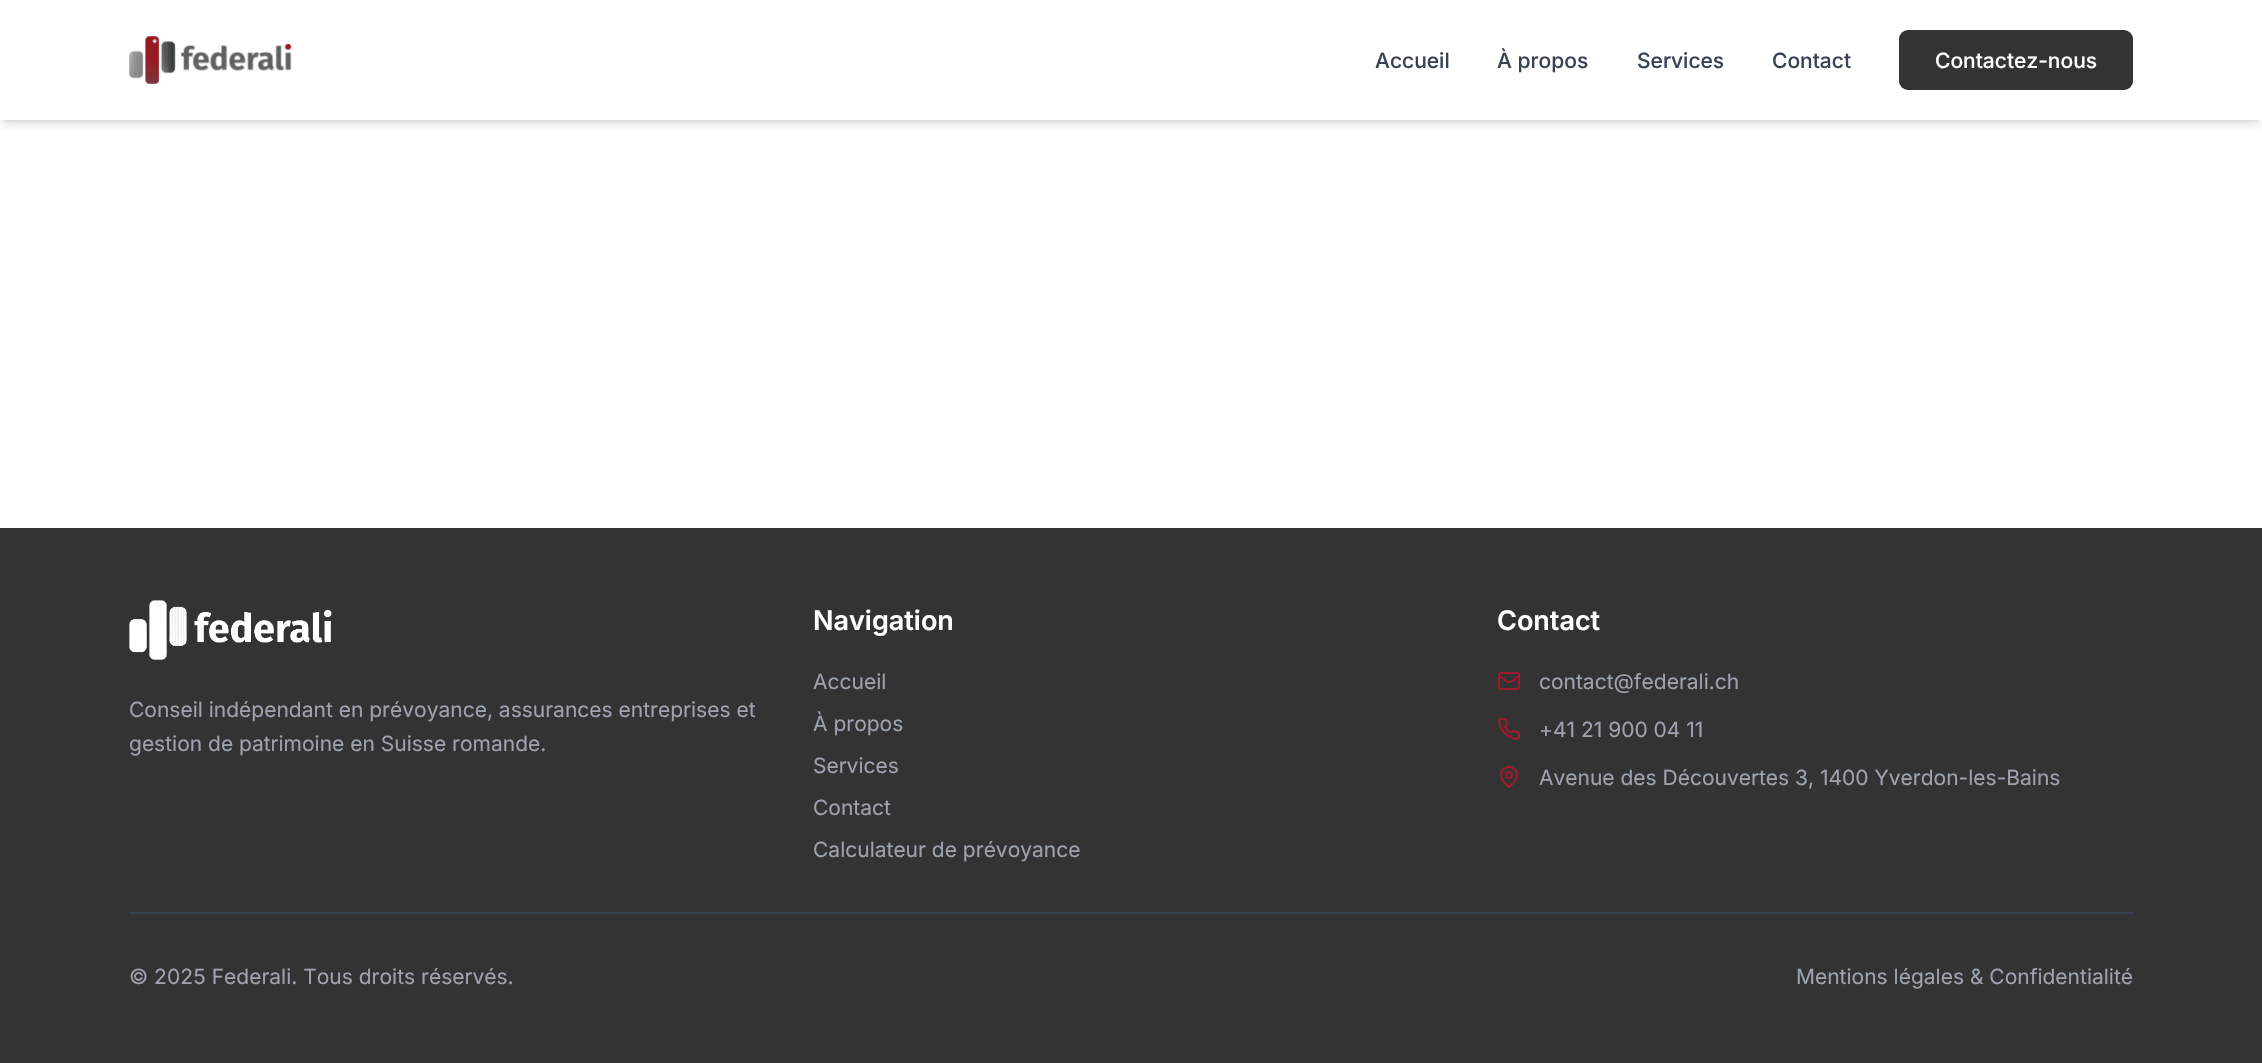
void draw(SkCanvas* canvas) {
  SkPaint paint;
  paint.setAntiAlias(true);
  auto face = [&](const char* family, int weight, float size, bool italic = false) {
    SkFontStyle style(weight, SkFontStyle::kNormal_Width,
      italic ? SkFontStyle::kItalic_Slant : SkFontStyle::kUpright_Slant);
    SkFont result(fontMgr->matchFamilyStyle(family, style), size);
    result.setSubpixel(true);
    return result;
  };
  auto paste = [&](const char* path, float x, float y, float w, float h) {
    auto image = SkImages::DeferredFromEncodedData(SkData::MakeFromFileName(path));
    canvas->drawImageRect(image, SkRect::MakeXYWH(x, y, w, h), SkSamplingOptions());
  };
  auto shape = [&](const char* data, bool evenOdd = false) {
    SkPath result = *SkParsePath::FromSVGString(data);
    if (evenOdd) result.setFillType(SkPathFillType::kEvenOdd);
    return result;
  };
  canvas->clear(0xffffffff);
  canvas->save();
  canvas->clipRect(SkRect::MakeXYWH(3, 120, 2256, 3));
  paint.setColor(0x1a000000);
  paint.setMaskFilter(SkMaskFilter::MakeBlur(kNormal_SkBlurStyle, 3));
  canvas->drawRect(SkRect::MakeXYWH(3, 6, 2256, 114), paint);
  paint.setMaskFilter(nullptr);
  canvas->restore();
  canvas->save();
  canvas->clipRect(SkRect::MakeXYWH(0, 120, 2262, 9));
  paint.setMaskFilter(SkMaskFilter::MakeBlur(kNormal_SkBlurStyle, 4.5f));
  canvas->drawRect(SkRect::MakeXYWH(2, 8, 2259, 117), paint);
  paint.setMaskFilter(nullptr);
  canvas->restore();
  paste("img/1.png", 129, 36, 163, 48);
  paint.setColor(0xff333333);
  canvas->drawRoundRect(SkRect::MakeXYWH(1899, 30, 234, 60), 9, 9, paint);
  canvas->drawRect(SkRect::MakeXYWH(0, 528, 2262, 535), paint);
  paste("img/2.png", 129, 600, 203, 60);
  paint.setStroke(true);
  paint.setStrokeWidth(2);
  paint.setColor(0xffa01a2d);
  canvas->drawRoundRect(SkRect::MakeXYWH(1499, 673, 20, 16), 2, 2, paint);
  paint.setStrokeCap(SkPaint::kRound_Cap);
  paint.setStrokeJoin(SkPaint::kRound_Join);
  canvas->drawPath(shape("M1519 676C1507 684 1511 684 1499 676"), paint);
  paste("img/3.png", 1498, 718, 22, 22);
  paste("img/4.png", 1500, 766, 18, 22);
  paint.setStroke(false);
  paint.setColor(0xff374151);
  canvas->drawRect(SkRect::MakeXYWH(129, 912, 2004, 2), paint);
  auto f0 = face("Inter", 500, 21);
  {
    const struct { const char* s; float x, y; } items[] = {
      {"Accueil", 1375, 68},
      {"À propos", 1497, 68},
      {"Services", 1637, 68},
      {"Contact", 1772, 68},
    };
    for (auto [s, x, y] : items) {
      canvas->drawString(s, x, y, f0, paint);
    }
  }
  paint.setColor(0xffffffff);
  canvas->drawString("Contactez-nous", 1935, 68, f0, paint);
  auto f1 = face("Inter", 400, 21);
  paint.setColor(0xff9ca3af);
  canvas->drawString("Conseil indépendant en prévoyance, assurances entreprises et", 129, 717, f1, paint);
  canvas->drawString("gestion de patrimoine en Suisse romande.", 129, 751, f1, paint);
  auto f2 = face("Inter", 600, 27);
  paint.setColor(0xffffffff);
  canvas->drawString("Navigation", 813, 630, f2, paint);
  paint.setColor(0xff9ca3af);
  {
    const struct { const char* s; float x, y; } items[] = {
      {"Accueil", 813, 689},
      {"À propos", 813, 731},
      {"Services", 813, 773},
      {"Contact", 813, 815},
      {"Calculateur de prévoyance", 813, 857},
    };
    for (auto [s, x, y] : items) {
      canvas->drawString(s, x, y, f1, paint);
    }
  }
  paint.setColor(0xffffffff);
  canvas->drawString("Contact", 1497, 630, f2, paint);
  paint.setColor(0xff9ca3af);
  {
    const struct { const char* s; float x, y; } items[] = {
      {"contact@federali.ch", 1539, 689},
      {"+41 21 900 04 11", 1539, 737},
      {"Avenue des Découvertes 3, 1400 Yverdon-les-Bains", 1539, 785},
      {"© 2025 Federali. Tous droits réservés.", 129, 984},
      {"Mentions légales & Confidentialité", 1796, 984},
    };
    for (auto [s, x, y] : items) {
      canvas->drawString(s, x, y, f1, paint);
    }
  }
}
